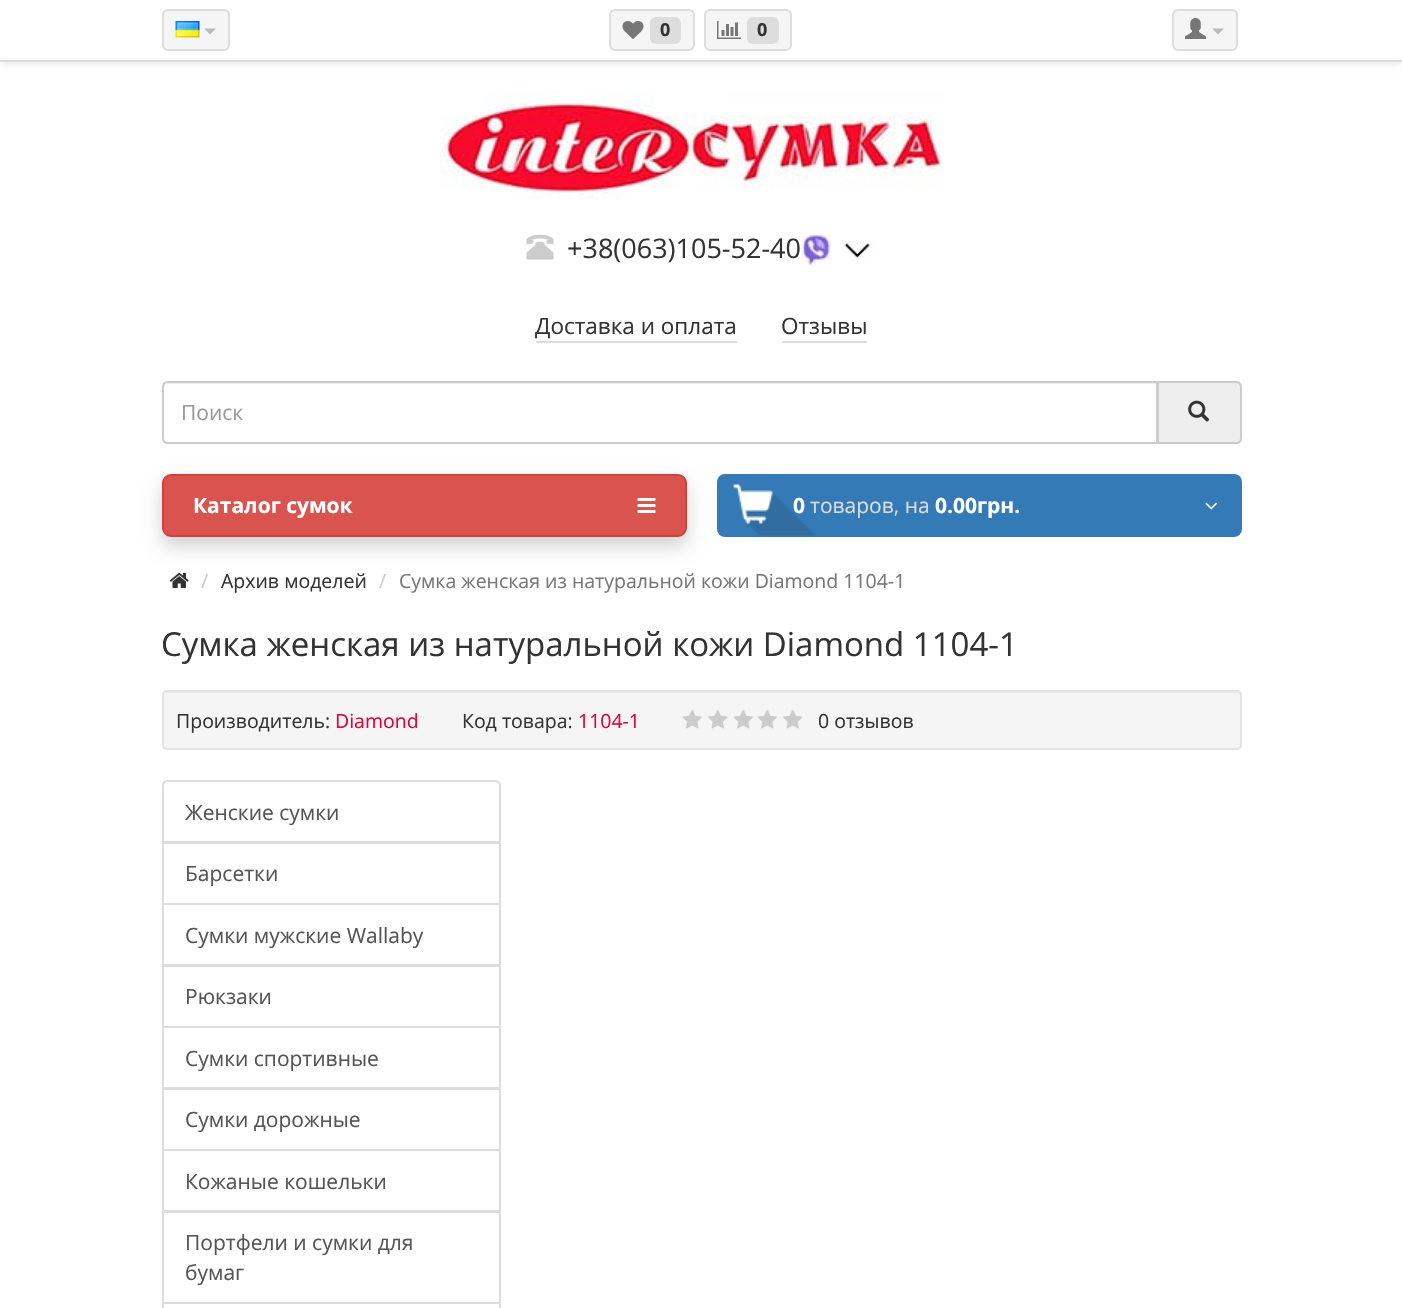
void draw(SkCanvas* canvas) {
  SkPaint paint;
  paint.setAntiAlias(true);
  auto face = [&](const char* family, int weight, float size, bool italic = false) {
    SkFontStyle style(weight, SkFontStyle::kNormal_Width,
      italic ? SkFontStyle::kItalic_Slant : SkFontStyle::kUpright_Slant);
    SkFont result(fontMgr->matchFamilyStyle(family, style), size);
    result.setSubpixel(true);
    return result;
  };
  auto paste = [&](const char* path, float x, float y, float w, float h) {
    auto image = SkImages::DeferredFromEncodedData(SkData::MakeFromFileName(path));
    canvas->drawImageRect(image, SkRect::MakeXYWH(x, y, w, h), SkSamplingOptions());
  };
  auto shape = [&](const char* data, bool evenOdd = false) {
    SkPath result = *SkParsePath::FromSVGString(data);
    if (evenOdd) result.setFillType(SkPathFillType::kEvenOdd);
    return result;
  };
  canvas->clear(0xffffffff);
  paint.setColor(0x1a000000);
  paint.setMaskFilter(SkMaskFilter::MakeBlur(kNormal_SkBlurStyle, 4));
  canvas->drawRect(SkRect::MakeXYWH(0, 2, 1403, 61), paint);
  paint.setMaskFilter(nullptr);
  paint.setColor(0xffffffff);
  canvas->drawRect(SkRect::MakeXYWH(0, 0, 1402, 60), paint);
  paint.setColor(0xffdddddd);
  canvas->drawRect(SkRect::MakeXYWH(0, 60, 1402, 2), paint);
  paint.setColor(0xfff5f5f5);
  canvas->drawRoundRect(SkRect::MakeXYWH(163, 10, 66, 40), 5, 5, paint);
  paint.setStroke(true);
  paint.setStrokeWidth(2);
  paint.setColor(0xffdddddd);
  canvas->drawRoundRect(SkRect::MakeXYWH(163, 10, 66, 40), 5, 5, paint);
  paste("img/1.png", 175, 21, 25, 17);
  paint.setStroke(false);
  paint.setColor(0xffbbbbbb);
  canvas->drawPath(shape("M204 28.5H216L210 34.5Z"), paint);
  paint.setColor(0xfff5f5f5);
  canvas->drawRoundRect(SkRect::MakeXYWH(610, 10, 84, 40), 5, 5, paint);
  paint.setStroke(true);
  paint.setColor(0xffdddddd);
  canvas->drawRoundRect(SkRect::MakeXYWH(610, 10, 84, 40), 5, 5, paint);
  paste("img/2.png", 622, 21, 22, 18);
  paint.setStroke(false);
  canvas->drawRoundRect(SkRect::MakeXYWH(650, 17, 31, 27), 6, 6, paint);
  paint.setColor(0xfff5f5f5);
  canvas->drawRoundRect(SkRect::MakeXYWH(705, 10, 86, 40), 5, 5, paint);
  paint.setStroke(true);
  paint.setColor(0xffdddddd);
  canvas->drawRoundRect(SkRect::MakeXYWH(705, 10, 86, 40), 5, 5, paint);
  paste("img/3.png", 717, 21, 24, 18);
  paint.setStroke(false);
  canvas->drawRoundRect(SkRect::MakeXYWH(747, 17, 32, 27), 6, 6, paint);
  paint.setColor(0xfff5f5f5);
  canvas->drawRoundRect(SkRect::MakeXYWH(1173, 10, 64, 40), 5, 5, paint);
  paint.setStroke(true);
  paint.setColor(0xffdddddd);
  canvas->drawRoundRect(SkRect::MakeXYWH(1173, 10, 64, 40), 5, 5, paint);
  paste("img/4.png", 1185, 18, 21, 21);
  paint.setStroke(false);
  paint.setColor(0xffbbbbbb);
  canvas->drawPath(shape("M1212 28.5H1224L1218 34.5Z"), paint);
  paste("img/5.png", 439, 91, 505, 109);
  paste("img/6.png", 526, 234, 28, 26);
  paste("img/7.png", 801, 235, 30, 31);
  paste("img/8.png", 842, 241, 31, 17);
  paint.setColor(0xffdddddd);
  canvas->drawRect(SkRect::MakeXYWH(536, 341, 201, 2), paint);
  canvas->drawRect(SkRect::MakeXYWH(782, 341, 85, 2), paint);
  paint.setColor(0xffeeeeee);
  canvas->drawPath(shape("M1158 382H1236C1239 382 1241 384 1241 387V438C1241 441 1239 443 1236 443H1158Z"), paint);
  paint.setStroke(true);
  paint.setColor(0xffcccccc);
  canvas->drawPath(shape("M1158 382H1236C1239 382 1241 384 1241 387V438C1241 441 1239 443 1236 443H1158Z"), paint);
  paint.setStroke(false);
  paint.setColor(0xffffffff);
  canvas->drawPath(shape("M168 381H1158V444H168C164.5 444 162 441.5 162 438V387C162 383.5 164.5 381 168 381Z"), paint);
  paint.setColor(0xffececec);
  canvas->drawPath(shape("M168 384H1156V443H1157V383H169C166 383 164 385 164 388C164 386 166 384 168 384Z"), paint);
  paint.setStroke(true);
  paint.setColor(0xffcccccc);
  canvas->drawPath(shape("M168 382H1157V443H168C165 443 163 441 163 438V387C163 384 165 382 168 382Z"), paint);
  paste("img/9.png", 1188, 400, 22, 22);
  paste("img/13.png", 169, 573, 20, 15);
  paint.setStroke(false);
  paint.setColor(0x2e000000);
  paint.setMaskFilter(SkMaskFilter::MakeBlur(kNormal_SkBlurStyle, 9));
  canvas->drawRoundRect(SkRect::MakeXYWH(162, 483, 525, 63), 9, 9, paint);
  paint.setMaskFilter(nullptr);
  paint.setColor(0xffd9534f);
  canvas->drawRoundRect(SkRect::MakeXYWH(163, 475, 523, 61), 8, 8, paint);
  paint.setStroke(true);
  paint.setColor(0xffd43f3a);
  canvas->drawRoundRect(SkRect::MakeXYWH(163, 475, 523, 61), 8, 8, paint);
  paste("img/10.png", 637, 498, 19, 15);
  paint.setStroke(false);
  paint.setColor(0xff337ab7);
  canvas->drawRoundRect(SkRect::MakeXYWH(717, 474, 525, 63), 8, 8, paint);
  paste("img/11.png", 733, 484, 83, 52);
  paste("img/12.png", 1205, 502, 13, 8);
  paint.setColor(0xfff5f5f5);
  canvas->drawRoundRect(SkRect::MakeXYWH(162, 690, 1080, 60), 5, 5, paint);
  paint.setColor(0xffe9e9e9);
  canvas->drawPath(shape("M166 693H1238C1239 693 1240 694 1240 696V748C1243 746 1241 738 1241 738V694L1239 692H167C165 692 164 694 164 696C164 694 165 693 166 693Z"), paint);
  paint.setStroke(true);
  paint.setColor(0xffe3e3e3);
  canvas->drawRoundRect(SkRect::MakeXYWH(163, 691, 1078, 58), 4, 4, paint);
  paste("img/14.png", 682, 710, 20, 19);
  paste("img/15.png", 708, 710, 20, 19);
  paste("img/14.png", 733, 710, 20, 19);
  paste("img/14.png", 757, 710, 20, 19);
  paste("img/15.png", 783, 710, 20, 19);
  paint.setColor(0xffdddddd);
  canvas->drawPath(shape("M168 781H495C498 781 500 783 500 786V842H163V786C163 783 165 781 168 781Z"), paint);
  canvas->drawRect(SkRect::MakeXYWH(163, 843, 337, 61), paint);
  canvas->drawRect(SkRect::MakeXYWH(163, 904, 337, 61), paint);
  canvas->drawRect(SkRect::MakeXYWH(163, 966, 337, 61), paint);
  canvas->drawRect(SkRect::MakeXYWH(163, 1027, 337, 61), paint);
  canvas->drawRect(SkRect::MakeXYWH(163, 1089, 337, 61), paint);
  canvas->drawRect(SkRect::MakeXYWH(163, 1150, 337, 61), paint);
  canvas->drawRect(SkRect::MakeXYWH(163, 1212, 337, 91), paint);
  canvas->drawRect(SkRect::MakeXYWH(163, 1303, 337, 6), paint);
  auto f0 = face("Open Sans", 700, 18);
  paint.setStroke(false);
  paint.setColor(0xff333333);
  canvas->drawString("0", 660, 36, f0, paint);
  canvas->drawString("0", 757, 36, f0, paint);
  auto f1 = face("Open Sans", 400, 27);
  canvas->drawString("+38(063)105-52-40", 567, 258, f1, paint);
  auto f2 = face("Open Sans", 400, 22.5f);
  canvas->drawString("Доставка и оплата", 535, 334, f2, paint);
  canvas->drawString("Отзывы", 781, 334, f2, paint);
  auto f3 = face("Open Sans", 400, 21);
  paint.setColor(0xff999999);
  canvas->drawString("Поиск", 181, 420, f3, paint);
  auto f4 = face("Open Sans", 700, 21);
  paint.setColor(0xffffffff);
  canvas->drawString("Каталог сумок", 193, 513, f4, paint);
  canvas->drawString("0", 793, 513, f4, paint);
  paint.setColor(0xffdddddd);
  canvas->drawString("товаров, на", 810, 513, f3, paint);
  paint.setColor(0xffffffff);
  canvas->drawString("0.00грн.", 935, 513, f4, paint);
  auto f5 = face("Open Sans", 400, 19.5f);
  paint.setColor(0xffcccccc);
  canvas->drawString("/", 201, 588, f5, paint);
  paint.setColor(0xff333333);
  canvas->drawString("Архив моделей", 221, 588, f5, paint);
  paint.setColor(0xffcccccc);
  canvas->drawString("/", 379, 588, f5, paint);
  paint.setColor(0xff777777);
  canvas->drawString("Сумка женская из натуральной кожи Diamond 1104-1", 399, 588, f5, paint);
  auto f6 = face("Open Sans", 400, 33);
  paint.setColor(0xff333333);
  canvas->drawString("Сумка женская из натуральной кожи Diamond 1104-1", 161, 656, f6, paint);
  canvas->drawString("Производитель:", 176, 728, f5, paint);
  paint.setColor(0xffe4003a);
  canvas->drawString("Diamond", 335, 728, f5, paint);
  paint.setColor(0xff333333);
  canvas->drawString("Код товара:", 462, 728, f5, paint);
  paint.setColor(0xffe4003a);
  canvas->drawString("1104-1", 578, 728, f5, paint);
  paint.setColor(0xff333333);
  canvas->drawString("0 отзывов", 818, 728, f5, paint);
  paint.setColor(0xff555555);
  {
    const struct { const char* s; float x, y; } items[] = {
      {"Женские сумки", 185, 820},
      {"Барсетки", 185, 881},
      {"Cумки мужские Wallaby", 185, 943},
      {"Рюкзаки", 185, 1004},
      {"Сумки спортивные", 185, 1066},
      {"Сумки дорожные", 185, 1127},
      {"Кожаные кошельки", 185, 1189},
      {"Портфели и сумки для", 185, 1250},
      {"бумаг", 185, 1280},
    };
    for (auto [s, x, y] : items) {
      canvas->drawString(s, x, y, f3, paint);
    }
  }
}
